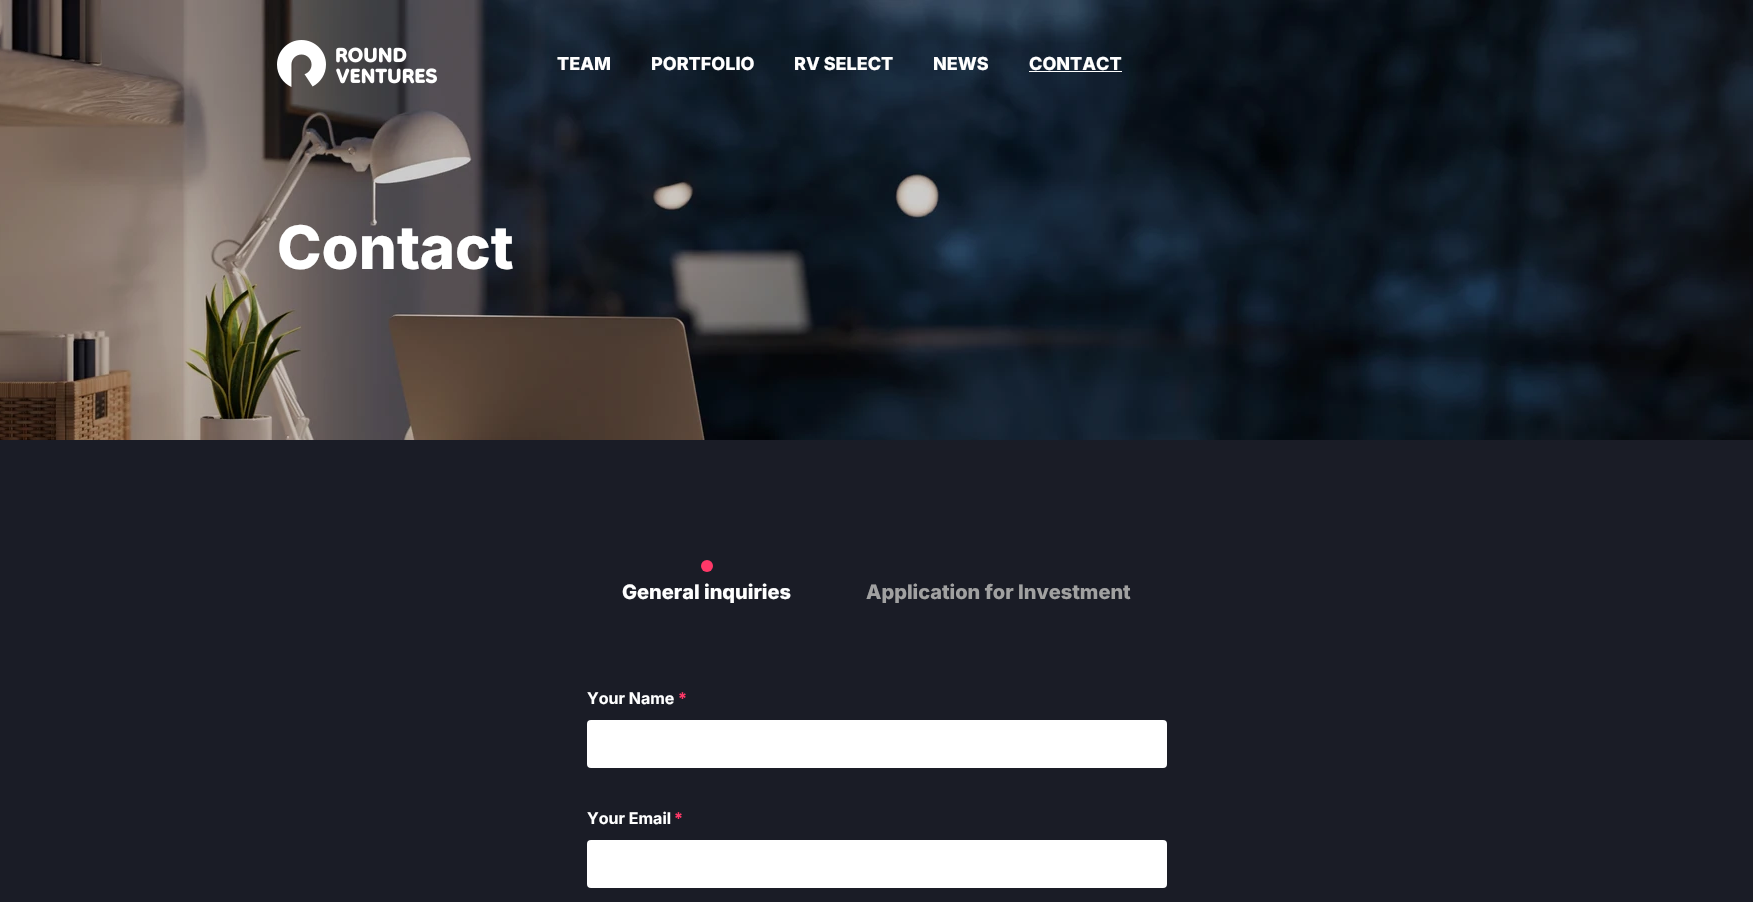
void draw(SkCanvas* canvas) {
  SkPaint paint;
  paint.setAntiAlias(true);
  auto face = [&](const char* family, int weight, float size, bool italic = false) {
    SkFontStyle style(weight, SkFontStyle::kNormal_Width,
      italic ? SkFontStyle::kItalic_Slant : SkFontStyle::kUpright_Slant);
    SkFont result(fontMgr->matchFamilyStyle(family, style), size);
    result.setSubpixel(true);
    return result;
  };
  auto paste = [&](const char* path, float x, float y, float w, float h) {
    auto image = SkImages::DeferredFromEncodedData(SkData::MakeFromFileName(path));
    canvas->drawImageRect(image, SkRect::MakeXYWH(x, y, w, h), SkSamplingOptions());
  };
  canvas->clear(0xff1a1c26);
  paste("img/2.png", 0, 0, 1753, 440);
  paste("img/1.png", 277, 40, 160, 47);
  paint.setColor(0xffffffff);
  canvas->drawRect(SkRect::MakeXYWH(1029, 71, 93, 1), paint);
  paint.setColor(0xffff3868);
  canvas->drawCircle(707, 566, 6, paint);
  paint.setColor(0xffffffff);
  canvas->drawRoundRect(SkRect::MakeXYWH(587, 720, 580, 48), 4, 4, paint);
  canvas->drawRoundRect(SkRect::MakeXYWH(587, 840, 580, 48), 4, 4, paint);
  auto f0 = face("Inter", 800, 18);
  {
    const struct { const char* s; float x, y; } items[] = {
      {"TEAM", 557, 70},
      {"PORTFOLIO", 651, 70},
      {"RV SELECT", 794, 70},
      {"NEWS", 933, 70},
      {"CONTACT", 1029, 70},
    };
    for (auto [s, x, y] : items) {
      canvas->drawString(s, x, y, f0, paint);
    }
  }
  auto f1 = face("Inter", 800, 60);
  canvas->drawString("Contact", 277, 269, f1, paint);
  auto f2 = face("Inter", 800, 20);
  canvas->drawString("General inquiries", 622, 599, f2, paint);
  paint.setColor(0xffa1a1a1);
  canvas->drawString("Application for Investment", 866, 599, f2, paint);
  auto f3 = face("Inter", 700, 16);
  paint.setColor(0xffffffff);
  canvas->drawString("Your Name", 587, 704, f3, paint);
  paint.setColor(0xffff3868);
  canvas->drawString("*", 678, 704, f3, paint);
  paint.setColor(0xffffffff);
  canvas->drawString("Your Email", 587, 824, f3, paint);
  paint.setColor(0xffff3868);
  canvas->drawString("*", 674, 824, f3, paint);
}
